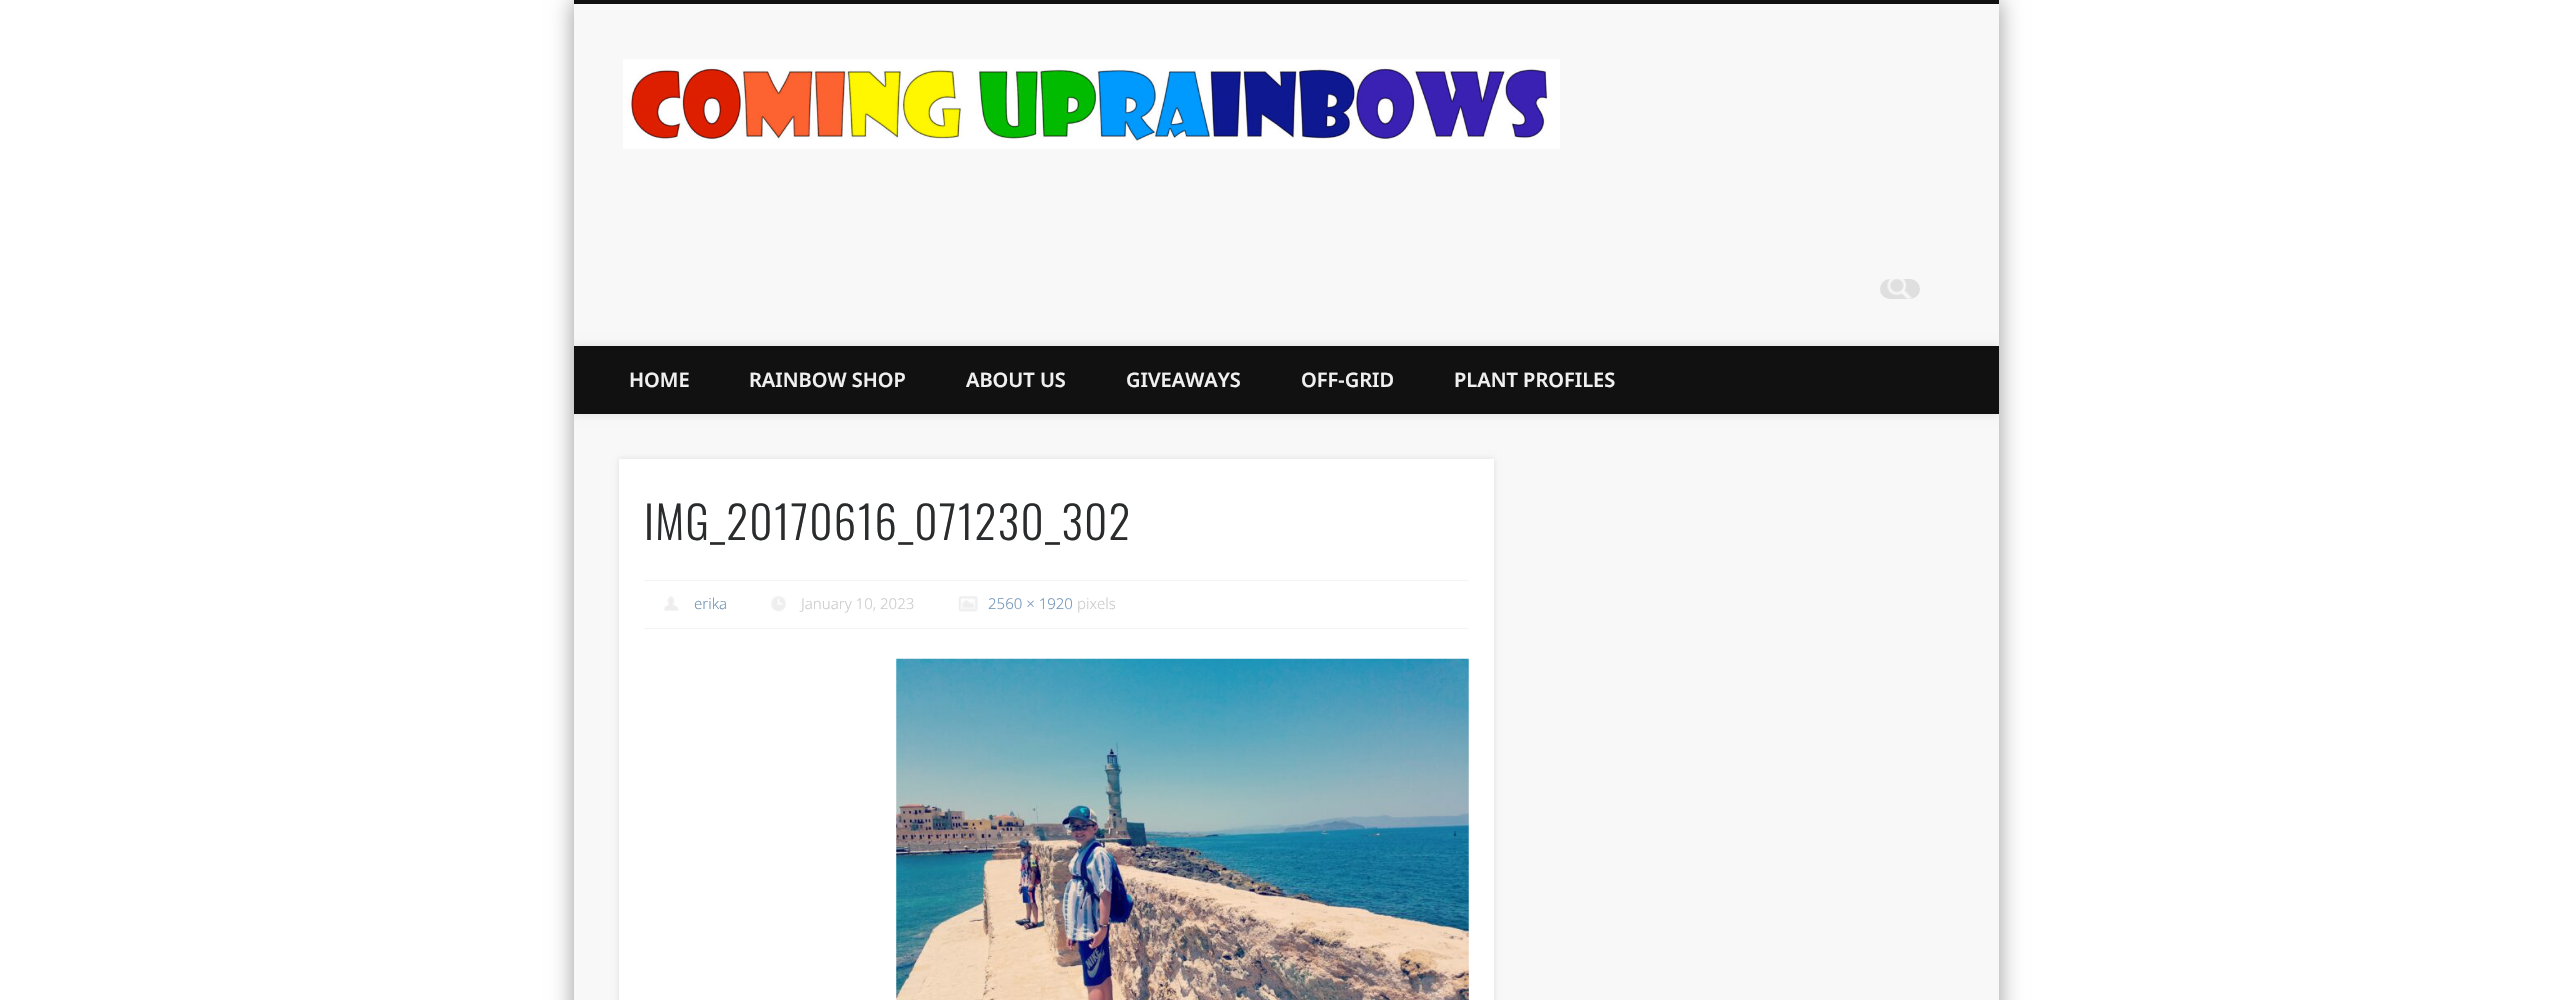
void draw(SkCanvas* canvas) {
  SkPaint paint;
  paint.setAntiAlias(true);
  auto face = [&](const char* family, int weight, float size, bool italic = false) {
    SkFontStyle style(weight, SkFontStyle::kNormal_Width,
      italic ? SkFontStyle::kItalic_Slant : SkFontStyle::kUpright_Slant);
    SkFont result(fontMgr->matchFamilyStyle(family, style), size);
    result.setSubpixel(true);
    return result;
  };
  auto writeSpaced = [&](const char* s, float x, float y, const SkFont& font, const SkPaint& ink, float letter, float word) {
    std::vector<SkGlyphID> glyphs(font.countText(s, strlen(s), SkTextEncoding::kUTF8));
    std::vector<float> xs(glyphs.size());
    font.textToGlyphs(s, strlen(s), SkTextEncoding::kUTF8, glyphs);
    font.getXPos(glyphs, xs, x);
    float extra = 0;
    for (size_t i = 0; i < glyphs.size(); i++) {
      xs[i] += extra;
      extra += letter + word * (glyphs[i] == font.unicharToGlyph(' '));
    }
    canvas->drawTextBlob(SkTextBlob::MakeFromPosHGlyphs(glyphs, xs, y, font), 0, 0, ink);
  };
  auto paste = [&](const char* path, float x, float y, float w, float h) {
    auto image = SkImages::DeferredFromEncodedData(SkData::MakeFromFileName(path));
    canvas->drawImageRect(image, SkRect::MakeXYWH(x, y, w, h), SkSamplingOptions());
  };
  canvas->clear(0xffffffff);
  paint.setColor(0x66000000);
  paint.setMaskFilter(SkMaskFilter::MakeBlur(kNormal_SkBlurStyle, 11));
  canvas->drawRect(SkRect::MakeXYWH(574, 0, 1425, 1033), paint);
  paint.setMaskFilter(nullptr);
  paint.setColor(0xfff8f8f8);
  canvas->drawRect(SkRect::MakeXYWH(574, 4, 1425, 996), paint);
  paint.setColor(0xff111111);
  canvas->drawRect(SkRect::MakeXYWH(574, 0, 1425, 4), paint);
  paste("img/1.png", 623, 59, 937, 90);
  paint.setColor(0xffdfdfdf);
  canvas->drawRoundRect(SkRect::MakeXYWH(1880, 279, 40, 20), 10, 10, paint);
  paste("img/2.png", 1887, 279, 25, 20);
  canvas->save();
  canvas->clipRect(SkRect::MakeXYWH(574, 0, 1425, 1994));
  paint.setColor(0x1a000000);
  paint.setMaskFilter(SkMaskFilter::MakeBlur(kNormal_SkBlurStyle, 4.5f));
  canvas->drawRect(SkRect::MakeXYWH(574, 346, 1425, 68), paint);
  paint.setMaskFilter(nullptr);
  canvas->restore();
  paint.setColor(0xff111111);
  canvas->drawRect(SkRect::MakeXYWH(574, 346, 1425, 68), paint);
  paint.setColor(0x1a000000);
  paint.setMaskFilter(SkMaskFilter::MakeBlur(kNormal_SkBlurStyle, 3));
  canvas->drawRect(SkRect::MakeXYWH(619, 459, 875, 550), paint);
  paint.setMaskFilter(nullptr);
  {
    const struct { float x, y, w, h; SkColor color; } items[] = {
      {619, 459, 875, 541, 0xffffffff},
      {644, 580, 825, 1, 0xfff4f4f4},
      {644, 628, 825, 1, 0xfff4f4f4},
    };
    for (auto [x, y, w, h, color] : items) {
      paint.setColor(color);
      canvas->drawRect(SkRect::MakeXYWH(x, y, w, h), paint);
    }
  }
  paste("img/3.png", 664, 596, 15, 15);
  paste("img/4.png", 771, 596, 15, 16);
  paste("img/5.png", 958, 596, 20, 16);
  paste("img/6.png", 896, 658, 573, 342);
  auto f0 = face("Noto Sans", 600, 20);
  paint.setColor(0xfff0f0f0);
  {
    const struct { const char* s; float x, y; } items[] = {
      {"HOME", 629, 387},
      {"RAINBOW SHOP", 749, 387},
      {"ABOUT US", 966, 387},
      {"GIVEAWAYS", 1126, 387},
      {"OFF-GRID", 1301, 387},
      {"PLANT PROFILES", 1454, 387},
    };
    for (auto [s, x, y] : items) {
      canvas->drawString(s, x, y, f0, paint);
    }
  }
  auto f1 = face("Oswald", 300, 45);
  paint.setColor(0xff292b2c);
  writeSpaced("IMG_20170616_071230_302", 644, 540, f1, paint, 1.25f, 0);
  auto f2 = face("Noto Sans", 300, 15);
  paint.setColor(0xff7597b9);
  canvas->drawString("erika", 694, 609, f2, paint);
  paint.setColor(0xffcccccc);
  canvas->drawString("January 10, 2023", 801, 609, f2, paint);
  paint.setColor(0xff7597b9);
  canvas->drawString("2560 × 1920", 988, 609, f2, paint);
  paint.setColor(0xffcccccc);
  canvas->drawString("pixels", 1077, 609, f2, paint);
}
